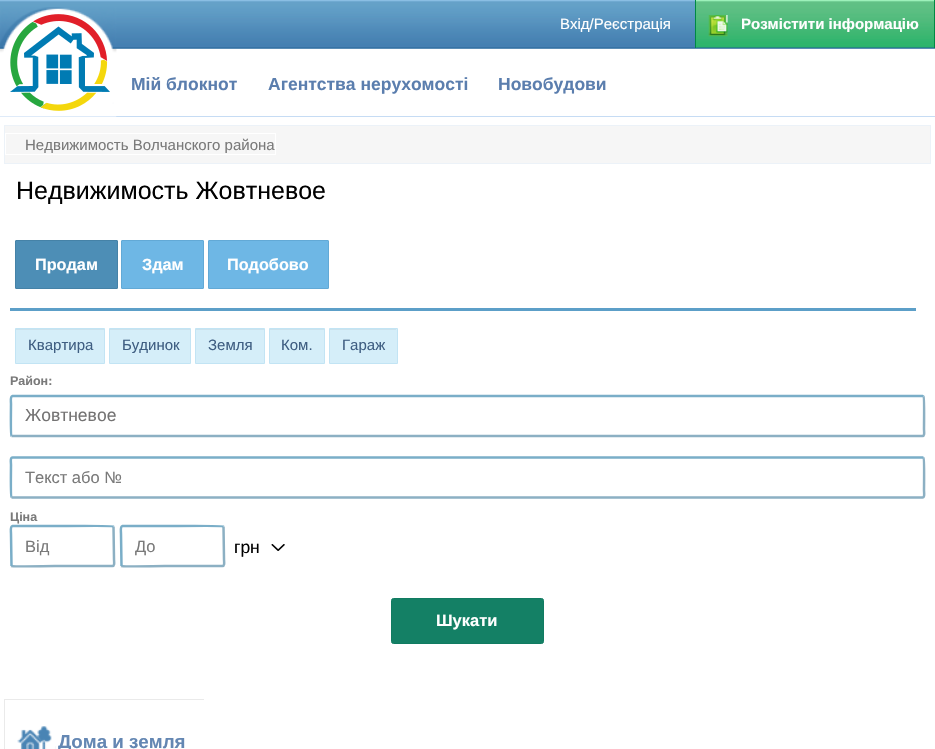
void draw(SkCanvas* canvas) {
  SkPaint paint;
  paint.setAntiAlias(true);
  auto face = [&](const char* family, int weight, float size, bool italic = false) {
    SkFontStyle style(weight, SkFontStyle::kNormal_Width,
      italic ? SkFontStyle::kItalic_Slant : SkFontStyle::kUpright_Slant);
    SkFont result(fontMgr->matchFamilyStyle(family, style), size);
    result.setSubpixel(true);
    return result;
  };
  auto paste = [&](const char* path, float x, float y, float w, float h) {
    auto image = SkImages::DeferredFromEncodedData(SkData::MakeFromFileName(path));
    canvas->drawImageRect(image, SkRect::MakeXYWH(x, y, w, h), SkSamplingOptions());
  };
  auto shape = [&](const char* data, bool evenOdd = false) {
    SkPath result = *SkParsePath::FromSVGString(data);
    if (evenOdd) result.setFillType(SkPathFillType::kEvenOdd);
    return result;
  };
  canvas->clear(0xffffffff);
  paste("img/1.png", 0, 0, 935, 49);
  paste("img/2.png", 696, 0, 238, 48);
  paint.setColor(0xff008944);
  canvas->drawRect(SkRect::MakeXYWH(934, 0, 1, 48), paint);
  canvas->drawRect(SkRect::MakeXYWH(695, 0, 1, 48), paint);
  paste("img/3.png", 708, 15, 20, 22);
  paint.setColor(0xffc6dcf4);
  canvas->drawRect(SkRect::MakeXYWH(0, 116, 935, 1), paint);
  paste("img/4.png", 0, 7, 117, 110);
  paste("img/6.png", 0, 48, 117, 69);
  paste("img/5.png", 10, 14, 100, 97);
  paint.setColor(0xfff6f6f6);
  canvas->drawRect(SkRect::MakeXYWH(4.5f, 125.5f, 926, 38), paint);
  paint.setStroke(true);
  paint.setStrokeWidth(1);
  paint.setColor(0xffecf2f8);
  canvas->drawRect(SkRect::MakeXYWH(4.5f, 125.5f, 926, 38), paint);
  paint.setColor(0xffffffff);
  canvas->drawRect(SkRect::MakeXYWH(5.5f, 133.5f, 270, 21), paint);
  paint.setStroke(false);
  paint.setColor(0xff5c9fc8);
  canvas->drawRect(SkRect::MakeXYWH(10, 308, 906, 3), paint);
  paint.setColor(0xff4d8eb6);
  canvas->drawRoundRect(SkRect::MakeXYWH(15.5f, 240.5f, 102, 48), 0.5f, 0.5f, paint);
  paint.setStroke(true);
  paint.setColor(0xff4582a7);
  canvas->drawRoundRect(SkRect::MakeXYWH(15.5f, 240.5f, 102, 48), 0.5f, 0.5f, paint);
  paint.setStroke(false);
  paint.setColor(0xff6eb7e5);
  canvas->drawRoundRect(SkRect::MakeXYWH(121.5f, 240.5f, 82, 48), 0.5f, 0.5f, paint);
  paint.setStroke(true);
  paint.setColor(0xff62a9d6);
  canvas->drawRoundRect(SkRect::MakeXYWH(121.5f, 240.5f, 82, 48), 0.5f, 0.5f, paint);
  paint.setStroke(false);
  paint.setColor(0xff6eb7e5);
  canvas->drawRoundRect(SkRect::MakeXYWH(208.5f, 240.5f, 120, 48), 0.5f, 0.5f, paint);
  paint.setStroke(true);
  paint.setColor(0xff62a9d6);
  canvas->drawRoundRect(SkRect::MakeXYWH(208.5f, 240.5f, 120, 48), 0.5f, 0.5f, paint);
  paint.setStroke(false);
  paint.setColor(0xffd5eef9);
  canvas->drawRoundRect(SkRect::MakeXYWH(15, 328, 90, 36), 1, 1, paint);
  paint.setColor(0xffcae2ed);
  canvas->drawRect(SkRect::MakeXYWH(16, 329, 88, 1), paint);
  paint.setStroke(true);
  paint.setColor(0xffc2e4f4);
  canvas->drawRoundRect(SkRect::MakeXYWH(15.5f, 328.5f, 89, 35), 0.5f, 0.5f, paint);
  paint.setStroke(false);
  paint.setColor(0xffd5eef9);
  canvas->drawRoundRect(SkRect::MakeXYWH(109, 328, 82, 36), 1, 1, paint);
  paint.setColor(0xffcae2ed);
  canvas->drawRect(SkRect::MakeXYWH(110, 329, 80, 1), paint);
  paint.setStroke(true);
  paint.setColor(0xffc2e4f4);
  canvas->drawRoundRect(SkRect::MakeXYWH(109.5f, 328.5f, 81, 35), 0.5f, 0.5f, paint);
  paint.setStroke(false);
  paint.setColor(0xffd5eef9);
  canvas->drawRoundRect(SkRect::MakeXYWH(195, 328, 70, 36), 1, 1, paint);
  paint.setColor(0xffcae2ed);
  canvas->drawRect(SkRect::MakeXYWH(196, 329, 68, 1), paint);
  paint.setStroke(true);
  paint.setColor(0xffc2e4f4);
  canvas->drawRoundRect(SkRect::MakeXYWH(195.5f, 328.5f, 69, 35), 0.5f, 0.5f, paint);
  paint.setStroke(false);
  paint.setColor(0xffd5eef9);
  canvas->drawRoundRect(SkRect::MakeXYWH(269, 328, 56, 36), 1, 1, paint);
  paint.setColor(0xffcae2ed);
  canvas->drawRect(SkRect::MakeXYWH(270, 329, 54, 1), paint);
  paint.setStroke(true);
  paint.setColor(0xffc2e4f4);
  canvas->drawRoundRect(SkRect::MakeXYWH(269.5f, 328.5f, 55, 35), 0.5f, 0.5f, paint);
  paint.setStroke(false);
  paint.setColor(0xffd5eef9);
  canvas->drawRoundRect(SkRect::MakeXYWH(329, 328, 69, 36), 1, 1, paint);
  paint.setColor(0xffcae2ed);
  canvas->drawRect(SkRect::MakeXYWH(330, 329, 66, 1), paint);
  paint.setStroke(true);
  paint.setColor(0xffc2e4f4);
  canvas->drawRoundRect(SkRect::MakeXYWH(329.5f, 328.5f, 68, 35), 0.5f, 0.5f, paint);
  paint.setStrokeWidth(2.5f);
  paint.setColor(0xff8cb0c3);
  canvas->drawPath(shape("M923.5 396.5C924.5 397.5 924 425 924 429C924 431.5 925 436 922.5 436H12.5H11.5"), paint);
  paint.setColor(0xff7aaec8);
  canvas->drawPath(shape("M11.5 436C10.5 435 11 407.5 11 404C11 401 10 396.5 12.5 396H922.5L923.5 396.5"), paint);
  paint.setColor(0xff8cb0c3);
  canvas->drawPath(shape("M923.5 458C924.5 459 924 486.5 924 490C924 492.5 925 497.5 922.5 497.5H12.5L11.5 497"), paint);
  paint.setColor(0xff7aaec8);
  canvas->drawPath(shape("M11.5 497C10.5 496 11 468.5 11 465C11 462.5 10 457.5 12.5 457.5H922.5L923.5 458"), paint);
  paint.setColor(0xff8cb0c3);
  canvas->drawPath(shape("M113.5 526.5L114 559C114 561.5 115 566 112.5 566H62.5C58 566 12.5 567 11.5 566"), paint);
  paint.setColor(0xff7aaec8);
  canvas->drawPath(shape("M11.5 566L11 534C11 531 10 526.5 12.5 526H62.5C67 526 112.5 525.5 113.5 526.5"), paint);
  paint.setColor(0xff8cb0c3);
  canvas->drawPath(shape("M223.5 526.5L224 559C224 561.5 225 566 222.5 566H172.5C168 566 122.5 567 121.5 566"), paint);
  paint.setColor(0xff7aaec8);
  canvas->drawPath(shape("M121.5 566L121 534C121 531 120 526.5 122.5 526H172.5C177 526 222.5 525.5 223.5 526.5"), paint);
  paste("img/7.png", 271, 544, 14, 7);
  paint.setStroke(false);
  paint.setColor(0xff148065);
  canvas->drawRoundRect(SkRect::MakeXYWH(391.5f, 598.5f, 152, 45), 2, 2, paint);
  paint.setStroke(true);
  paint.setStrokeWidth(1);
  paint.setColor(0xff117b61);
  canvas->drawRoundRect(SkRect::MakeXYWH(391.5f, 598.5f, 152, 45), 2, 2, paint);
  paint.setStroke(false);
  paint.setColor(0xffeaeaea);
  canvas->drawRect(SkRect::MakeXYWH(4, 699, 200, 1), paint);
  canvas->drawRect(SkRect::MakeXYWH(4, 699, 1, 50), paint);
  paste("img/8.png", 17, 726, 39, 23);
  auto f0 = face("Liberation Sans", 400, 15);
  paint.setColor(0xffffffff);
  canvas->drawString("Вхід/Реєстрація", 560, 29, f0, paint);
  auto f1 = face("Liberation Sans", 700, 15);
  canvas->drawString("Розмістити інформацію", 741, 29, f1, paint);
  auto f2 = face("Liberation Sans", 700, 17.5f);
  paint.setColor(0xff5b7eae);
  {
    const struct { const char* s; float x, y; } items[] = {
      {"Мій блокнот", 131, 90},
      {"Агентства нерухомості", 268, 90},
      {"Новобудови", 498, 90},
    };
    for (auto [s, x, y] : items) {
      canvas->drawString(s, x, y, f2, paint);
    }
  }
  paint.setColor(0xff7a7a7a);
  canvas->drawString("Недвижимость Волчанского района", 25, 150, f0, paint);
  auto f3 = face("Liberation Sans", 400, 25);
  paint.setColor(0xff000000);
  canvas->drawString("Недвижимость Жовтневое", 16, 199, f3, paint);
  auto f4 = face("Liberation Sans", 700, 16.25f);
  paint.setColor(0xffffffff);
  {
    const struct { const char* s; float x, y; } items[] = {
      {"Продам", 35, 270},
      {"Здам", 142, 270},
      {"Подобово", 227, 270},
    };
    for (auto [s, x, y] : items) {
      canvas->drawString(s, x, y, f4, paint);
    }
  }
  paint.setColor(0xff3f5e82);
  {
    const struct { const char* s; float x, y; } items[] = {
      {"Квартира", 28, 350},
      {"Будинок", 122, 350},
      {"Земля", 208, 350},
      {"Ком.", 281, 350},
      {"Гараж", 342, 350},
    };
    for (auto [s, x, y] : items) {
      canvas->drawString(s, x, y, f0, paint);
    }
  }
  auto f5 = face("Liberation Sans", 700, 12.5f);
  paint.setColor(0xff7a7a7a);
  canvas->drawString("Район:", 10, 385, f5, paint);
  auto f6 = face("Liberation Sans", 400, 17.5f);
  paint.setColor(0xff747373);
  canvas->drawString("Жовтневое", 25, 421, f6, paint);
  auto f7 = face("Liberation Sans", 400, 16.5f);
  paint.setColor(0xff7a7a7a);
  canvas->drawString("Текст або №", 25, 483, f7, paint);
  canvas->drawString("Ціна", 10, 521, f5, paint);
  canvas->drawString("Від", 25, 552, f7, paint);
  canvas->drawString("До", 135, 552, f7, paint);
  paint.setColor(0xff000000);
  canvas->drawString("грн", 234, 553, f6, paint);
  auto f8 = face("Liberation Sans", 700, 16.5f);
  paint.setColor(0xffffffff);
  canvas->drawString("Шукати", 436, 626, f8, paint);
  auto f9 = face("Liberation Sans", 700, 18.75f);
  paint.setColor(0xff6487b3);
  canvas->drawString("Дома и земля", 58, 748, f9, paint);
}
